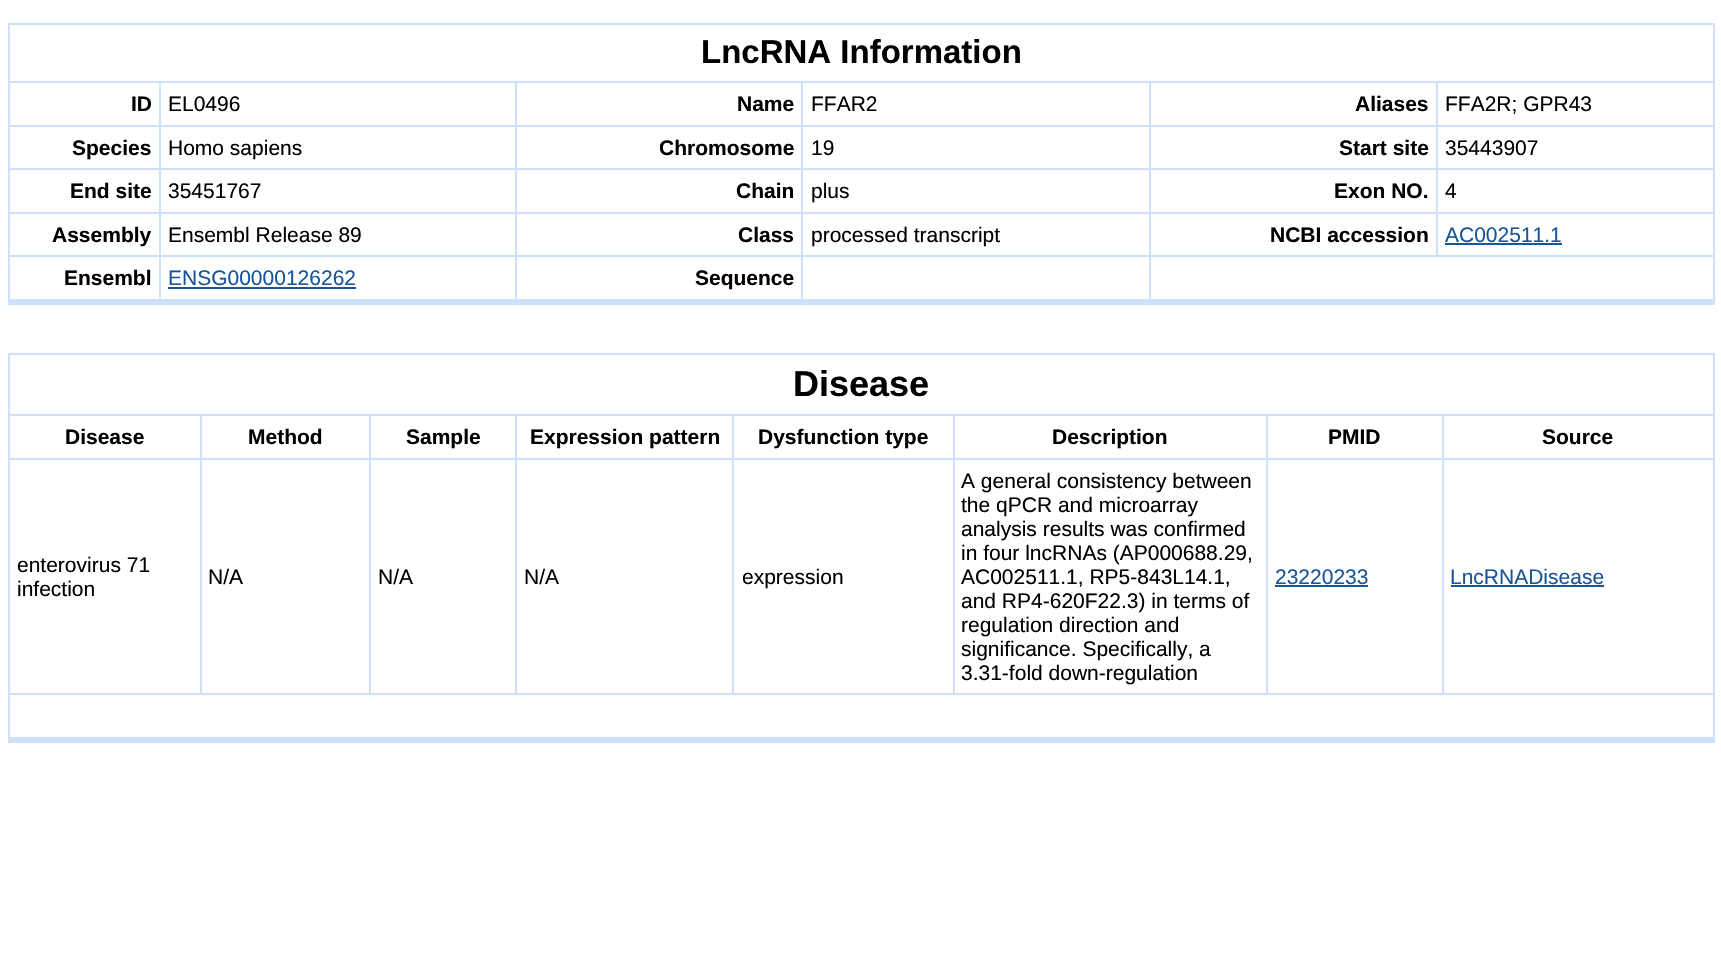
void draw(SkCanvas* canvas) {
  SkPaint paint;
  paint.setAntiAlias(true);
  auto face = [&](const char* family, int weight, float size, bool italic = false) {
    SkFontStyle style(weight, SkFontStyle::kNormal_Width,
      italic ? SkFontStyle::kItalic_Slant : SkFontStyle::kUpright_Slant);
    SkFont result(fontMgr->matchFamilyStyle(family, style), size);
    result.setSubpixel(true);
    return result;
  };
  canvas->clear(0xffffffff);
  {
    const struct { float x, y, w, h; SkColor color; } items[] = {
      {1713, 23, 2, 282, 0xffcfe1f9},
      {8, 299, 1707, 6, 0xffcfe1f9},
      {8, 23, 1705, 2, 0xffcfe1f9},
      {8, 23, 2, 58, 0xffcfe1f9},
      {8, 81, 1705, 2, 0xffcfe1f9},
      {8, 81, 2, 44, 0xffcfe1f9},
      {159, 81, 2, 44, 0xffcfe1f9},
      {515, 81, 2, 44, 0xffcfe1f9},
      {801, 81, 2, 44, 0xffcfe1f9},
      {1149, 81, 2, 44, 0xffcfe1f9},
      {1436, 81, 2, 44, 0xffcfe1f9},
      {8, 125, 1705, 2, 0xffcfe1f9},
      {8, 125, 2, 43, 0xffcfe1f9},
      {159, 125, 2, 43, 0xffcfe1f9},
      {515, 125, 2, 43, 0xffcfe1f9},
      {801, 125, 2, 43, 0xffcfe1f9},
      {1149, 125, 2, 43, 0xffcfe1f9},
      {1436, 125, 2, 43, 0xffcfe1f9},
      {8, 168, 1705, 2, 0xffcfe1f9},
      {8, 168, 2, 44, 0xffcfe1f9},
      {159, 168, 2, 44, 0xffcfe1f9},
      {515, 168, 2, 44, 0xffcfe1f9},
      {801, 168, 2, 44, 0xffcfe1f9},
      {1149, 168, 2, 44, 0xffcfe1f9},
      {1436, 168, 2, 44, 0xffcfe1f9},
      {8, 212, 1705, 2, 0xffcfe1f9},
      {8, 212, 2, 43, 0xffcfe1f9},
      {159, 212, 2, 43, 0xffcfe1f9},
      {515, 212, 2, 43, 0xffcfe1f9},
      {801, 212, 2, 43, 0xffcfe1f9},
      {1149, 212, 2, 43, 0xffcfe1f9},
      {1436, 212, 2, 43, 0xffcfe1f9},
      {1445, 243, 117, 2, 0xff185697},
      {8, 255, 1705, 2, 0xffcfe1f9},
      {8, 255, 2, 44, 0xffcfe1f9},
      {159, 255, 2, 44, 0xffcfe1f9},
      {168, 287, 188, 2, 0xff185697},
      {515, 255, 2, 44, 0xffcfe1f9},
      {801, 255, 2, 44, 0xffcfe1f9},
      {1149, 255, 2, 44, 0xffcfe1f9},
      {1713, 353, 2, 390, 0xffcfe1f9},
      {8, 737, 1707, 6, 0xffcfe1f9},
      {8, 353, 1705, 2, 0xffcfe1f9},
      {8, 353, 2, 61, 0xffcfe1f9},
      {8, 414, 1705, 2, 0xffcfe1f9},
      {8, 414, 2, 44, 0xffcfe1f9},
      {200, 414, 2, 44, 0xffcfe1f9},
      {369, 414, 2, 44, 0xffcfe1f9},
      {515, 414, 2, 44, 0xffcfe1f9},
      {732, 414, 2, 44, 0xffcfe1f9},
      {953, 414, 2, 44, 0xffcfe1f9},
      {1266, 414, 2, 44, 0xffcfe1f9},
      {1442, 414, 2, 44, 0xffcfe1f9},
      {8, 458, 1705, 2, 0xffcfe1f9},
      {8, 458, 2, 235, 0xffcfe1f9},
      {200, 458, 2, 235, 0xffcfe1f9},
      {369, 458, 2, 235, 0xffcfe1f9},
      {515, 458, 2, 235, 0xffcfe1f9},
      {732, 458, 2, 235, 0xffcfe1f9},
      {953, 458, 2, 235, 0xffcfe1f9},
      {1266, 458, 2, 235, 0xffcfe1f9},
      {1275, 585, 93, 2, 0xff185697},
      {1442, 458, 2, 235, 0xffcfe1f9},
      {1451, 585, 153, 2, 0xff185697},
      {8, 693, 1705, 2, 0xffcfe1f9},
      {8, 693, 2, 44, 0xffcfe1f9},
    };
    for (auto [x, y, w, h, color] : items) {
      paint.setColor(color);
      canvas->drawRect(SkRect::MakeXYWH(x, y, w, h), paint);
    }
  }
  auto f0 = face("Liberation Sans", 700, 33);
  paint.setColor(0xff000000);
  canvas->drawString("LncRNA Information", 701, 63, f0, paint);
  auto f1 = face("Liberation Sans", 700, 21);
  canvas->drawString("ID", 131, 111, f1, paint);
  auto f2 = face("Liberation Sans", 400, 21);
  canvas->drawString("EL0496", 168, 111, f2, paint);
  canvas->drawString("Name", 737, 111, f1, paint);
  canvas->drawString("FFAR2", 811, 111, f2, paint);
  canvas->drawString("Aliases", 1355, 111, f1, paint);
  canvas->drawString("FFA2R; GPR43", 1445, 111, f2, paint);
  canvas->drawString("Species", 72, 155, f1, paint);
  canvas->drawString("Homo sapiens", 168, 155, f2, paint);
  canvas->drawString("Chromosome", 659, 155, f1, paint);
  canvas->drawString("19", 811, 155, f2, paint);
  canvas->drawString("Start site", 1339, 155, f1, paint);
  canvas->drawString("35443907", 1445, 155, f2, paint);
  canvas->drawString("End site", 70, 198, f1, paint);
  canvas->drawString("35451767", 168, 198, f2, paint);
  canvas->drawString("Chain", 736, 198, f1, paint);
  canvas->drawString("plus", 811, 198, f2, paint);
  canvas->drawString("Exon NO.", 1334, 198, f1, paint);
  canvas->drawString("4", 1445, 198, f2, paint);
  canvas->drawString("Assembly", 52, 242, f1, paint);
  canvas->drawString("Ensembl Release 89", 168, 242, f2, paint);
  canvas->drawString("Class", 738, 242, f1, paint);
  canvas->drawString("processed transcript", 811, 242, f2, paint);
  canvas->drawString("NCBI accession", 1270, 242, f1, paint);
  paint.setColor(0xff185697);
  canvas->drawString("AC002511.1", 1445, 242, f2, paint);
  paint.setColor(0xff000000);
  canvas->drawString("Ensembl", 64, 285, f1, paint);
  paint.setColor(0xff185697);
  canvas->drawString("ENSG00000126262", 168, 285, f2, paint);
  paint.setColor(0xff000000);
  canvas->drawString("Sequence", 695, 285, f1, paint);
  auto f3 = face("Liberation Sans", 700, 36);
  canvas->drawString("Disease", 793, 396, f3, paint);
  {
    const struct { const char* s; float x, y; } items[] = {
      {"Disease", 65, 444},
      {"Method", 248, 444},
      {"Sample", 406, 444},
      {"Expression pattern", 530, 444},
      {"Dysfunction type", 758, 444},
      {"Description", 1052, 444},
      {"PMID", 1328, 444},
      {"Source", 1542, 444},
    };
    for (auto [s, x, y] : items) {
      canvas->drawString(s, x, y, f1, paint);
    }
  }
  {
    const struct { const char* s; float x, y; } items[] = {
      {"enterovirus 71", 17, 572},
      {"infection", 17, 596},
      {"N/A", 208, 584},
      {"N/A", 378, 584},
      {"N/A", 524, 584},
      {"expression", 742, 584},
      {"A general consistency between", 961, 488},
      {"the qPCR and microarray", 961, 512},
      {"analysis results was confirmed", 961, 536},
      {"in four lncRNAs (AP000688.29,", 961, 560},
      {"AC002511.1, RP5-843L14.1,", 961, 584},
      {"and RP4-620F22.3) in terms of", 961, 608},
      {"regulation direction and", 961, 632},
      {"significance. Specifically, a", 961, 656},
      {"3.31-fold down-regulation", 961, 680},
    };
    for (auto [s, x, y] : items) {
      canvas->drawString(s, x, y, f2, paint);
    }
  }
  paint.setColor(0xff185697);
  canvas->drawString("23220233", 1275, 584, f2, paint);
  canvas->drawString("LncRNADisease", 1450, 584, f2, paint);
}
